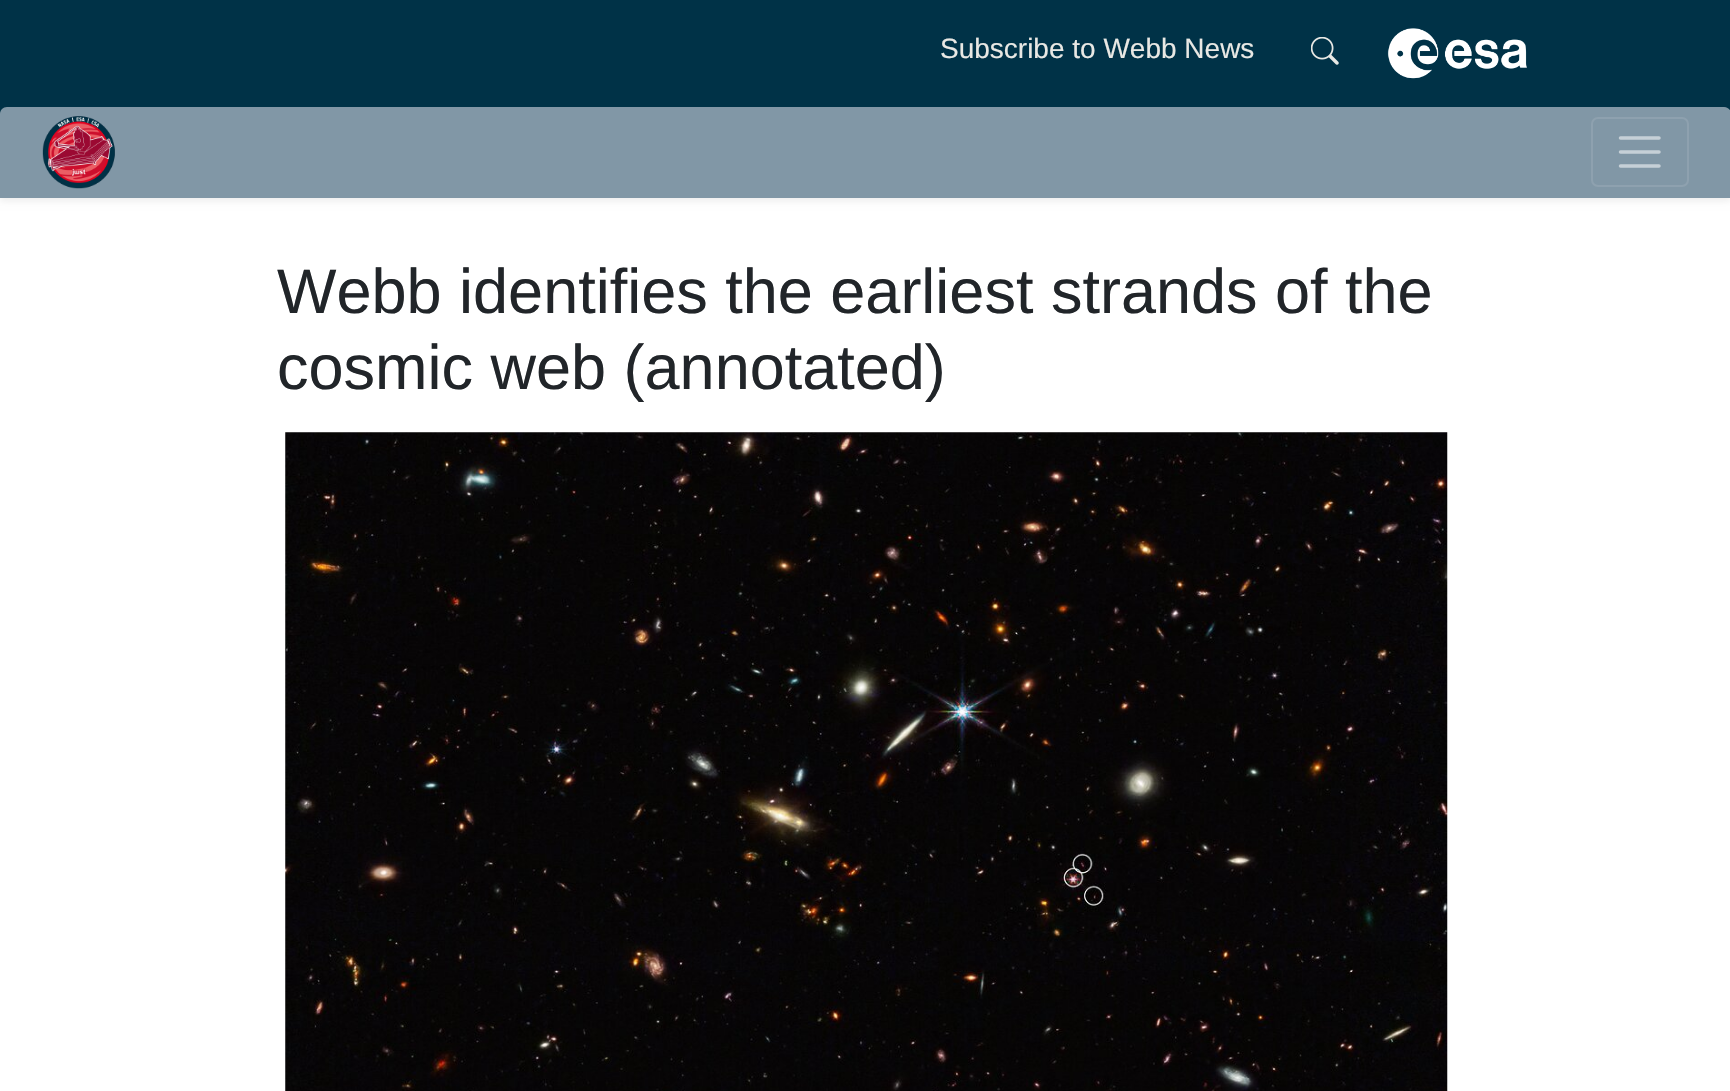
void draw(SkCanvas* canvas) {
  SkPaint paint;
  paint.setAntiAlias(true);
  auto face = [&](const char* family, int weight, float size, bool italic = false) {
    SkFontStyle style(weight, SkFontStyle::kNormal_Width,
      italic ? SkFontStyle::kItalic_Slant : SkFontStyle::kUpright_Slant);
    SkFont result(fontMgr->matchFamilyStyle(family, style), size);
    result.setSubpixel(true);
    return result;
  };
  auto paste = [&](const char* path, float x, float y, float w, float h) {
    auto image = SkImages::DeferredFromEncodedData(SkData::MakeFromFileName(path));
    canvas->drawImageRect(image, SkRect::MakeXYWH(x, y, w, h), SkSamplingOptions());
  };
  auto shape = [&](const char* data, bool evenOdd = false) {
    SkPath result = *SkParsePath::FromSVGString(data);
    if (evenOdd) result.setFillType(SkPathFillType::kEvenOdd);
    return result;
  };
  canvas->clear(0xffffffff);
  paint.setColor(0x12000000);
  paint.setMaskFilter(SkMaskFilter::MakeBlur(kNormal_SkBlurStyle, 3.5f));
  canvas->drawRect(SkRect::MakeXYWH(0, 4, 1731, 197), paint);
  paint.setMaskFilter(nullptr);
  paint.setColor(0xff003247);
  canvas->drawRect(SkRect::MakeXYWH(0, 0, 1730, 114), paint);
  paste("img/1.png", 1311, 37, 28, 28);
  paste("img/2.png", 1387, 28, 140, 51);
  paint.setColor(0xff8197a6);
  canvas->drawPath(shape("M7 107H1724C1728 107 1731 110 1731 114V198H0V114C0 110 3 107 7 107Z"), paint);
  paste("img/3.png", 42, 116, 73, 73);
  paint.setStroke(true);
  paint.setStrokeWidth(2);
  paint.setColor(0xff8ea1af);
  canvas->drawRoundRect(SkRect::MakeXYWH(1592, 118, 96, 68), 6, 6, paint);
  paint.setStrokeWidth(3.5f);
  paint.setStrokeCap(SkPaint::kRound_Cap);
  paint.setColor(0xffc6d0d7);
  canvas->drawPath(shape("M1620.5 138H1659M1620.5 152H1659M1620.5 166H1659"), paint);
  paste("img/4.png", 285, 432, 1163, 659);
  auto f0 = face("Liberation Sans", 400, 28);
  paint.setStroke(false);
  paint.setColor(0xffe8e8e4);
  canvas->drawString("Subscribe to Webb News", 940, 58, f0, paint);
  auto f1 = face("Liberation Sans", 400, 63);
  paint.setColor(0xff212529);
  canvas->drawString("Webb identifies the earliest strands of the", 277, 313, f1, paint);
  canvas->drawString("cosmic web (annotated)", 277, 389, f1, paint);
}
